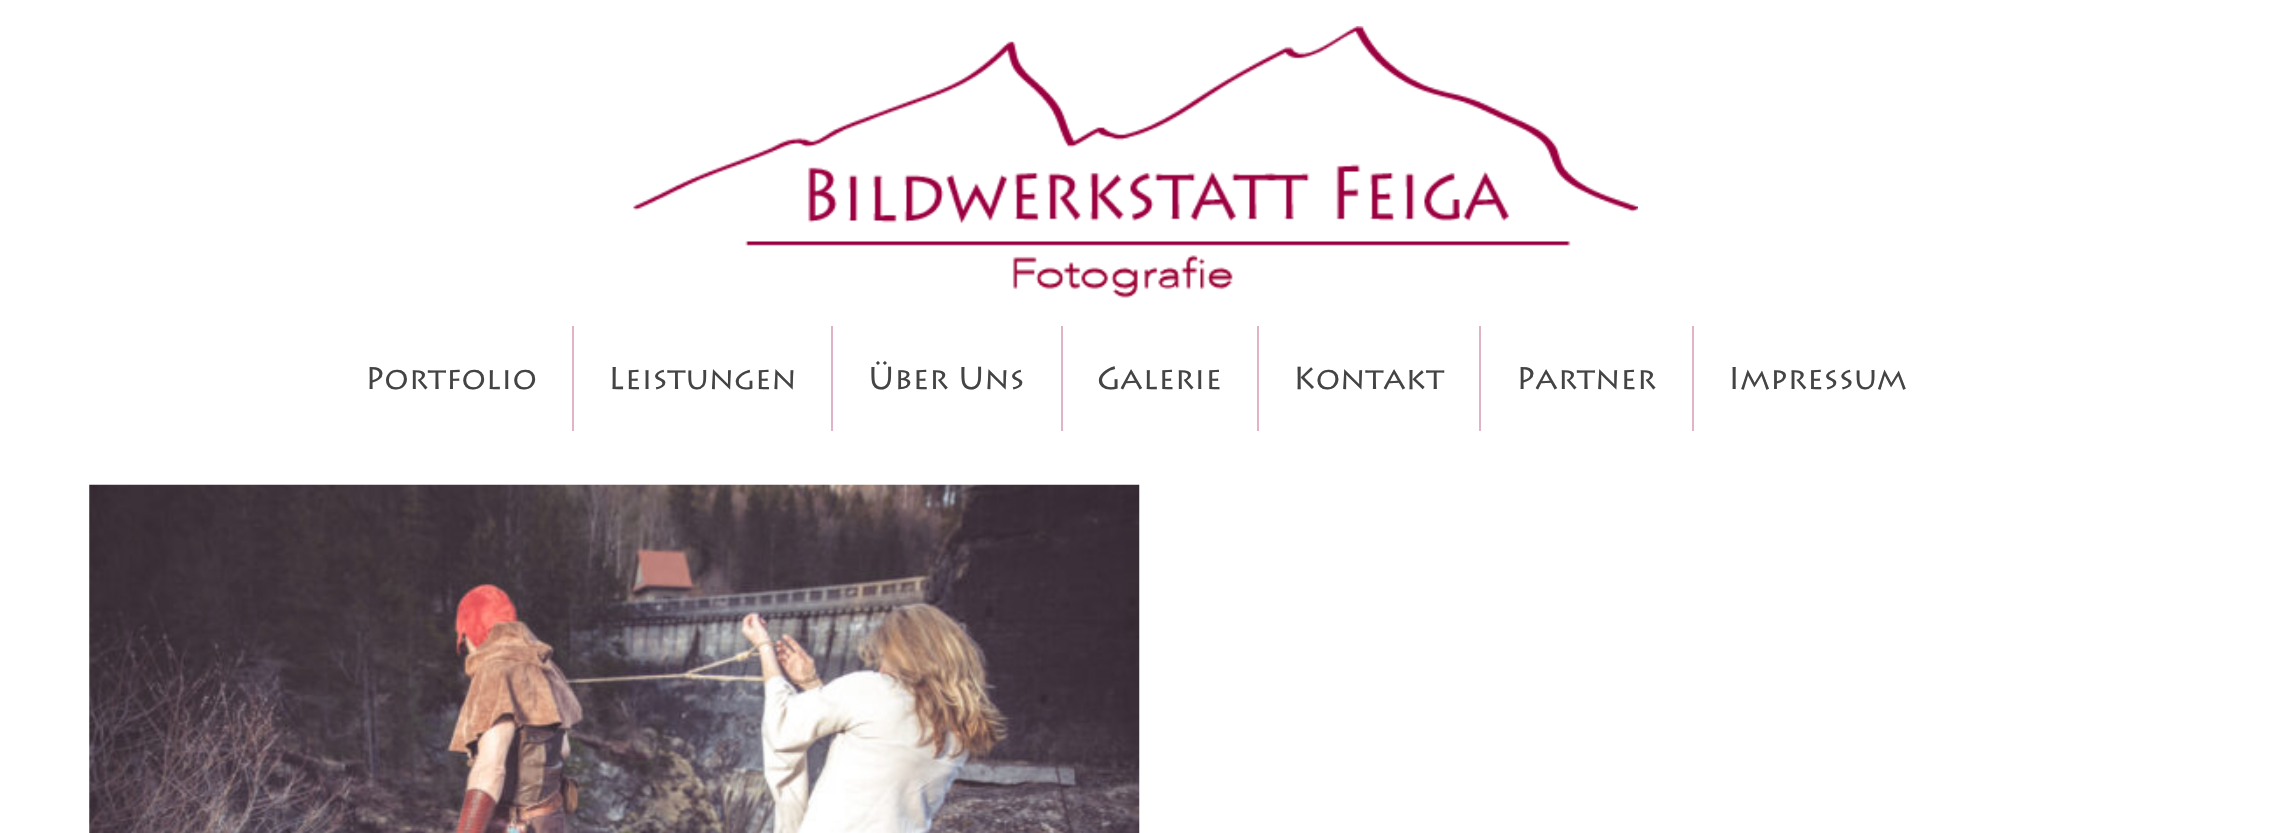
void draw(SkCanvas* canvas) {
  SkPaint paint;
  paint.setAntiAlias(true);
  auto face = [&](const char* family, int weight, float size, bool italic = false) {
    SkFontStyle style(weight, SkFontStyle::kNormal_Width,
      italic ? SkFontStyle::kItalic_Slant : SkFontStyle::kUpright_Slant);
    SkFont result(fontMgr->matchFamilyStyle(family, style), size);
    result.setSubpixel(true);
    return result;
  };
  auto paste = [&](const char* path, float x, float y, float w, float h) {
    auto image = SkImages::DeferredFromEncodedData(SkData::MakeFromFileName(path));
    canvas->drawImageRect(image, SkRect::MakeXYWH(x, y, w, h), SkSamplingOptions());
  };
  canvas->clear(0xffffffff);
  paste("img/1.png", 633, 26, 1005, 272);
  {
    const struct { float x, y, w, h; SkColor color; } items[] = {
      {572, 326, 2, 105, 0xffe1b3c6},
      {831, 326, 2, 105, 0xffe1b3c6},
      {1061, 326, 2, 105, 0xffe1b3c6},
      {1257, 326, 2, 105, 0xffe1b3c6},
      {1479, 326, 2, 105, 0xffe1b3c6},
      {1692, 326, 2, 105, 0xffe1b3c6},
    };
    for (auto [x, y, w, h, color] : items) {
      paint.setColor(color);
      canvas->drawRect(SkRect::MakeXYWH(x, y, w, h), paint);
    }
  }
  paste("img/2.png", 89, 484, 1051, 349);
  auto f0 = face("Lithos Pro", 400, 31.5f);
  paint.setColor(0xff444444);
  {
    const struct { const char* s; float x, y; } items[] = {
      {"Portfolio", 365, 389},
      {"Leistungen", 608, 389},
      {"Über Uns", 868, 389},
      {"Galerie", 1097, 389},
      {"Kontakt", 1293, 389},
      {"Partner", 1516, 389},
      {"Impressum", 1728, 389},
    };
    for (auto [s, x, y] : items) {
      canvas->drawString(s, x, y, f0, paint);
    }
  }
}
